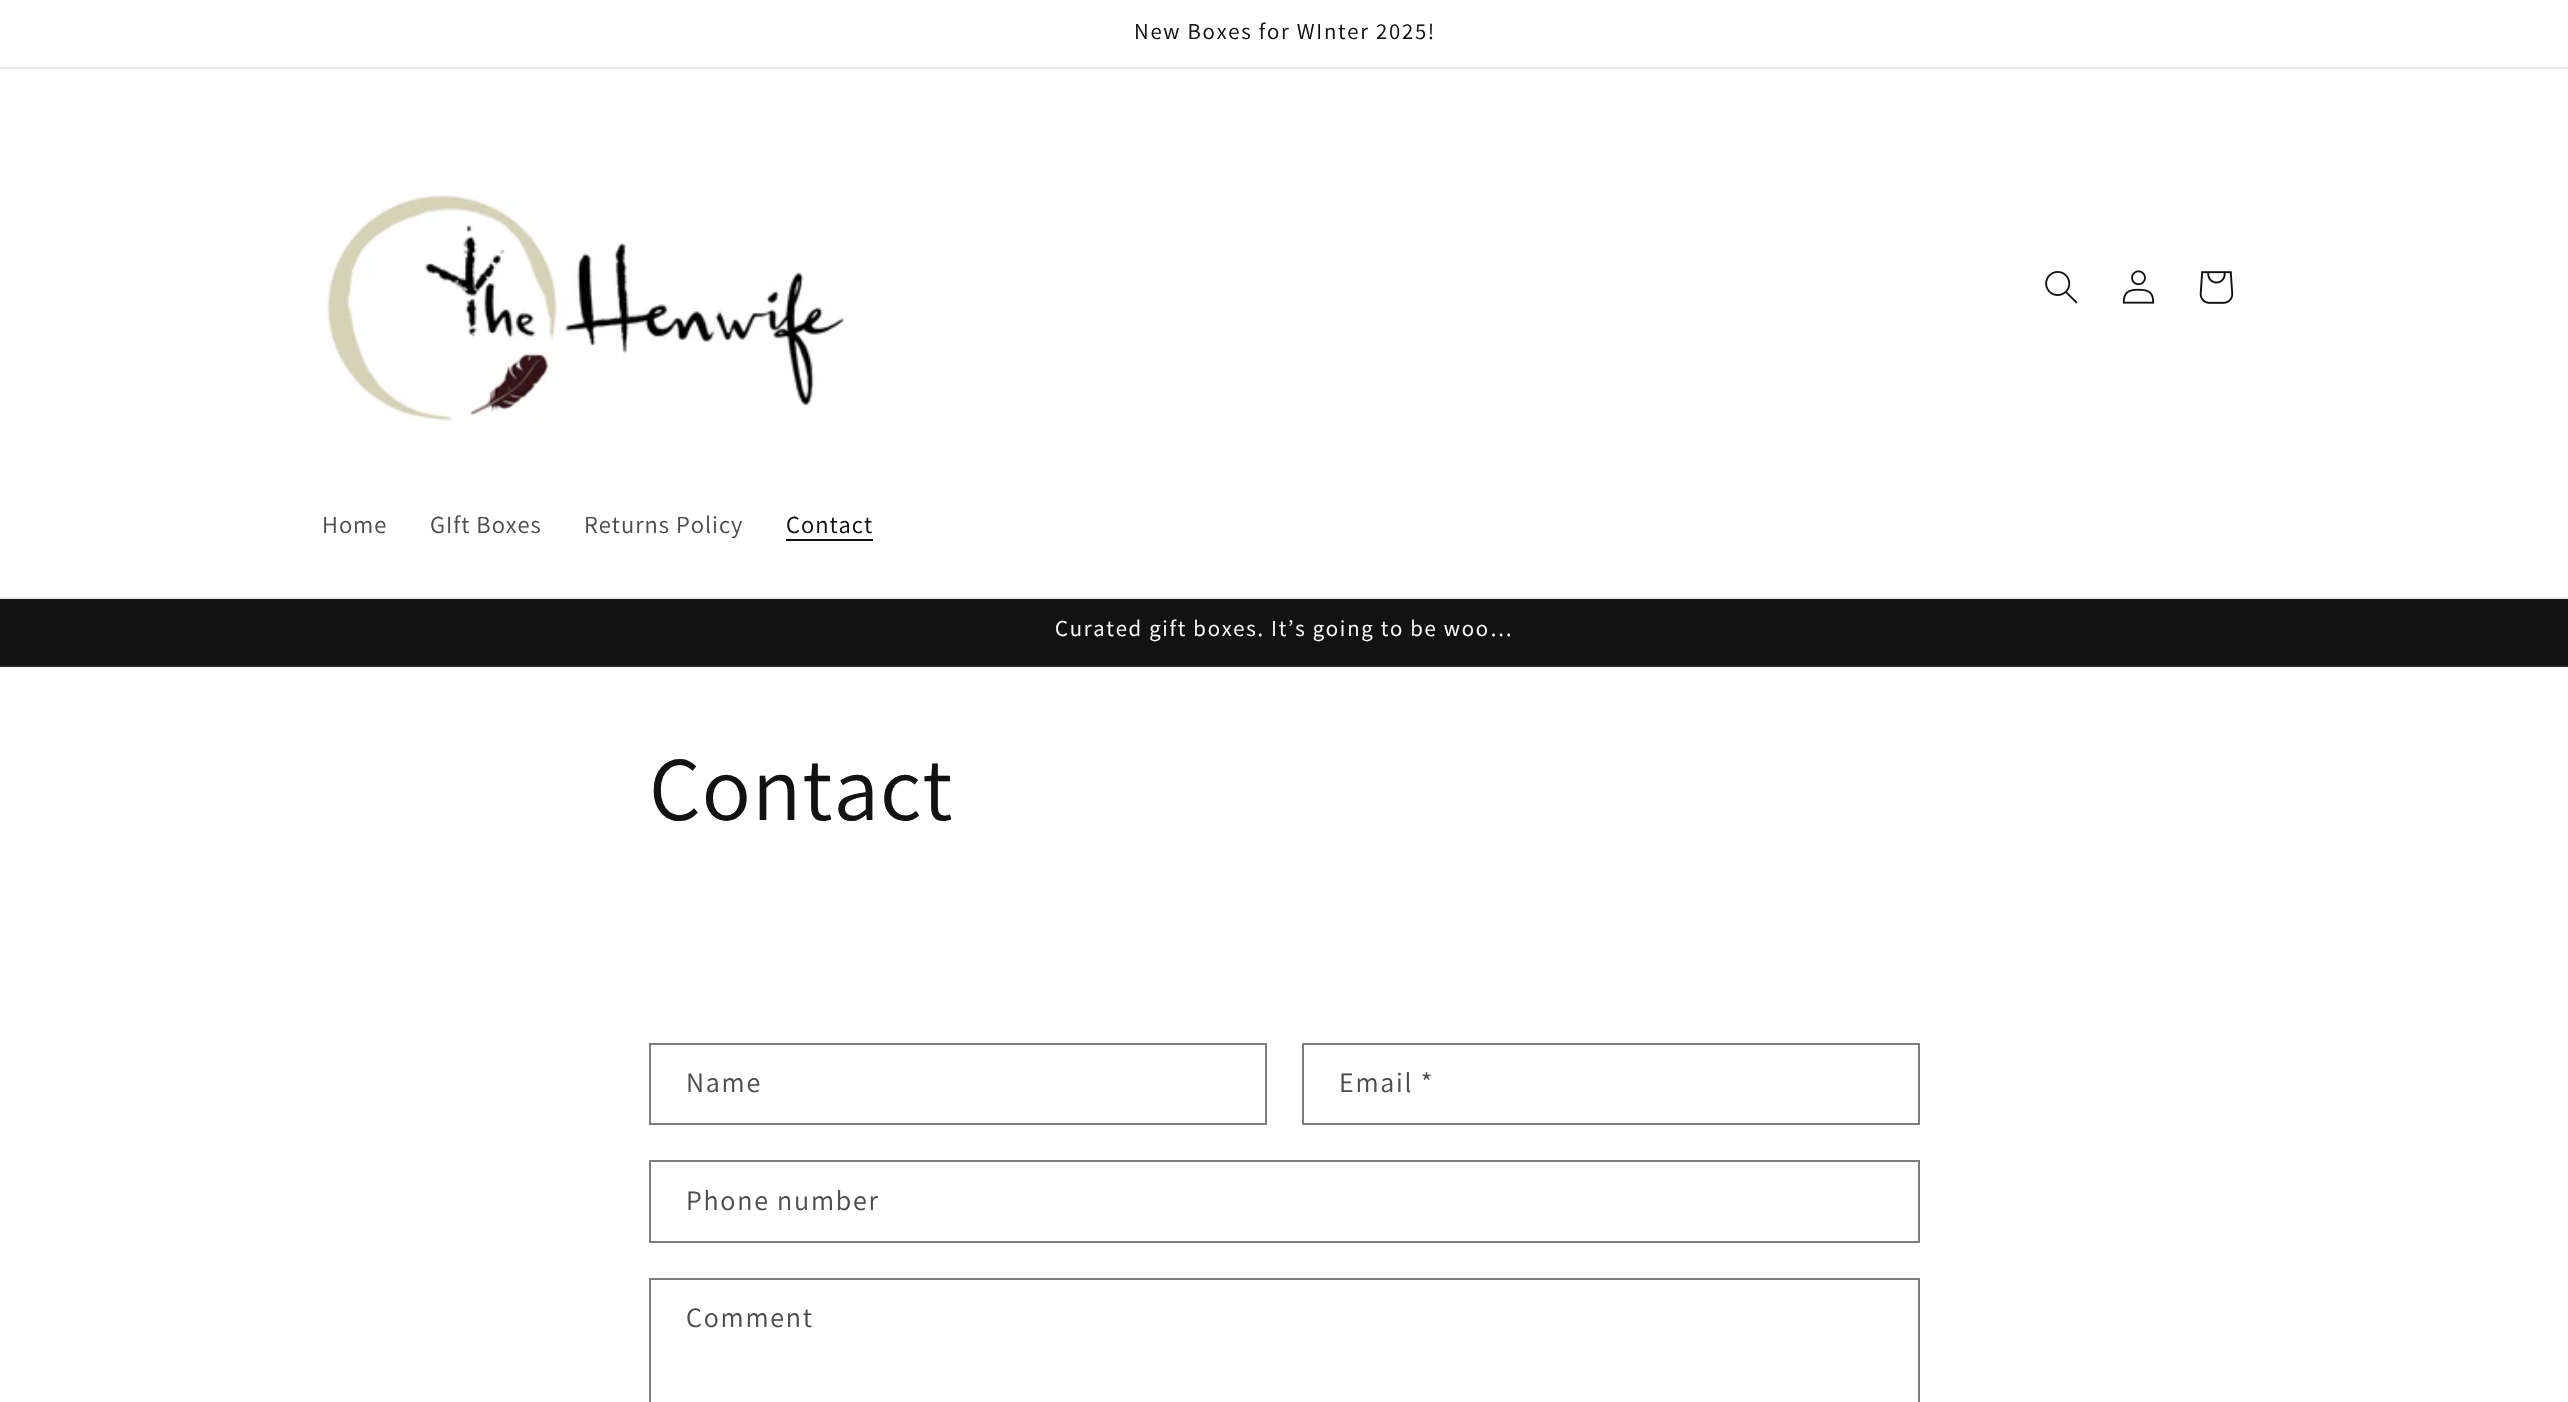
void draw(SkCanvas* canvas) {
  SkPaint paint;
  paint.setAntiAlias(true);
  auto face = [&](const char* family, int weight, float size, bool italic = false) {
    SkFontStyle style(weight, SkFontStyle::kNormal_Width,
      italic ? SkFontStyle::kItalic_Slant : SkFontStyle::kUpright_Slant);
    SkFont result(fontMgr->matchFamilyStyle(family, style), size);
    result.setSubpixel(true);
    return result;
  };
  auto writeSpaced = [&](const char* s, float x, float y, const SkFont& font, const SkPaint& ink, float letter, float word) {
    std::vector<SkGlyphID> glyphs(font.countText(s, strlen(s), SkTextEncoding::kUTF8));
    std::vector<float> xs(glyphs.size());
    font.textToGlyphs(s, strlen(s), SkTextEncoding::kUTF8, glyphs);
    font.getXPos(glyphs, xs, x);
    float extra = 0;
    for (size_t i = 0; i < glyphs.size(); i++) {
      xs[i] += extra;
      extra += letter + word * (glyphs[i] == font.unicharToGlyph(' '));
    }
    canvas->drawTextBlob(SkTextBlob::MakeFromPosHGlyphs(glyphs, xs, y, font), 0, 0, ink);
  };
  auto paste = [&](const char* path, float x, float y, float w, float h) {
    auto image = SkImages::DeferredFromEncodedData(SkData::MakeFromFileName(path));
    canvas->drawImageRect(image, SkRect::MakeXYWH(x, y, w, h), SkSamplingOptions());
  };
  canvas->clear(0xffffffff);
  paint.setColor(0xffececec);
  canvas->drawRect(SkRect::MakeXYWH(0, 67, 2568, 2), paint);
  canvas->drawRect(SkRect::MakeXYWH(0, 597, 2568, 2), paint);
  paste("img/1.png", 327, 195, 518, 230);
  paste("img/2.png", 2045, 271, 33, 33);
  paste("img/3.png", 2122, 270, 33, 34);
  paste("img/4.png", 2199, 271, 35, 33);
  {
    const struct { float x, y, w, h; SkColor color; } items[] = {
      {786, 539, 87, 2, 0xff121212},
      {0, 599, 2568, 66, 0xff121212},
      {0, 665, 2568, 2, 0xff252525},
    };
    for (auto [x, y, w, h, color] : items) {
      paint.setColor(color);
      canvas->drawRect(SkRect::MakeXYWH(x, y, w, h), paint);
    }
  }
  paint.setStroke(true);
  paint.setStrokeWidth(2);
  paint.setColor(0xff7d7d7d);
  canvas->drawRect(SkRect::MakeXYWH(650, 1044, 616, 80), paint);
  canvas->drawRect(SkRect::MakeXYWH(1303, 1044, 616, 80), paint);
  canvas->drawRect(SkRect::MakeXYWH(650, 1161, 1269, 81), paint);
  canvas->drawRect(SkRect::MakeXYWH(650, 1279, 1269, 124), paint);
  auto f0 = face("Assistant", 400, 22.75f);
  paint.setStroke(false);
  paint.setColor(0xff121212);
  writeSpaced("New Boxes for WInter 2025!", 1134, 39, f0, paint, 1.75f, 0);
  auto f1 = face("Assistant", 400, 24.5f);
  paint.setColor(0xff4d4d4d);
  {
    const struct { const char* s; float x, y; } items[] = {
      {"Home", 322, 533},
      {"GIft Boxes", 430, 533},
      {"Returns Policy", 584, 533},
    };
    for (auto [s, x, y] : items) {
      writeSpaced(s, x, y, f1, paint, 1, 0);
    }
  }
  paint.setColor(0xff121212);
  writeSpaced("Contact", 786, 533, f1, paint, 1, 0);
  paint.setColor(0xffffffff);
  writeSpaced("Curated gift boxes. It’s going to be woo…", 1055, 636, f0, paint, 1.75f, 0);
  auto f2 = face("Assistant", 400, 91);
  paint.setColor(0xff121212);
  writeSpaced("Contact", 649, 820, f2, paint, 1, 0);
  auto f3 = face("Assistant", 400, 28);
  paint.setColor(0xff4d4d4d);
  {
    const struct { const char* s; float x, y; } items[] = {
      {"Name", 686, 1092},
      {"Email *", 1339, 1092},
      {"Phone number", 686, 1210},
      {"Comment", 686, 1327},
    };
    for (auto [s, x, y] : items) {
      writeSpaced(s, x, y, f3, paint, 1.75f, 0);
    }
  }
}
